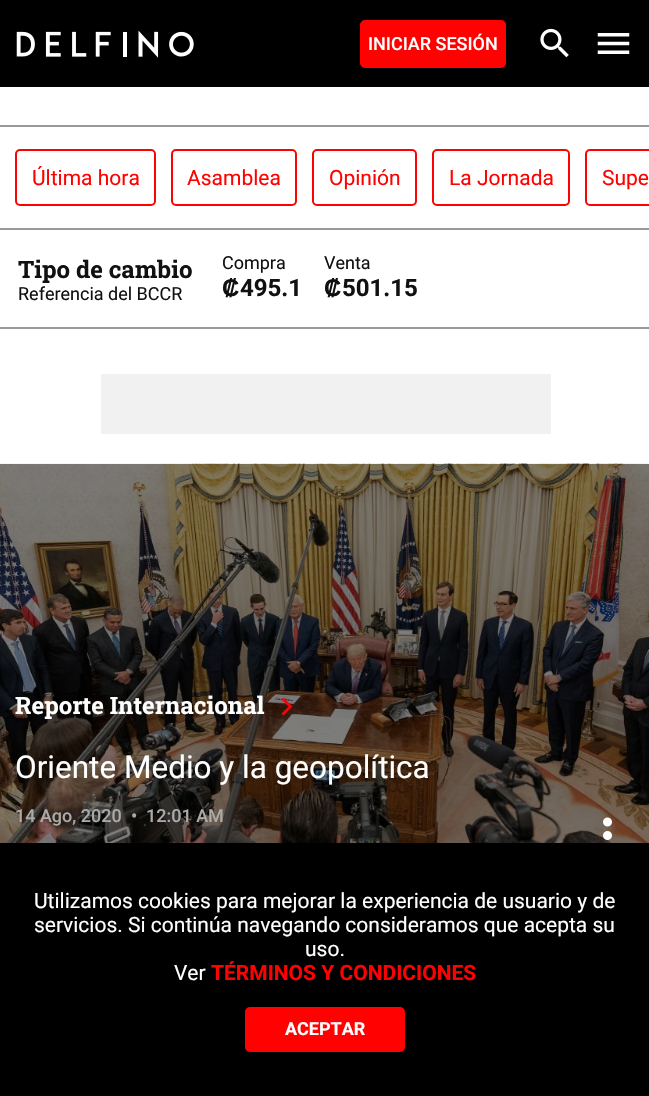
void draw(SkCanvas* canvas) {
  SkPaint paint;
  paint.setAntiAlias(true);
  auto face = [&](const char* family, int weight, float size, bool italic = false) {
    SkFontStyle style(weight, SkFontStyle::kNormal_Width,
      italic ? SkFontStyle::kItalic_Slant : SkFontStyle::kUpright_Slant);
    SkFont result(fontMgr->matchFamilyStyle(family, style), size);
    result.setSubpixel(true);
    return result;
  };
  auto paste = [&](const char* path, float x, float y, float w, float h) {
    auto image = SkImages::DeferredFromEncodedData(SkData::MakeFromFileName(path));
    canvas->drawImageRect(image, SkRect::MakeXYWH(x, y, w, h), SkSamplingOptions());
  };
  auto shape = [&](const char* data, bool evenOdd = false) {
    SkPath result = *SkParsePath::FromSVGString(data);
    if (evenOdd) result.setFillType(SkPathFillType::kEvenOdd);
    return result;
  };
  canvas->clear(0xffffffff);
  paint.setColor(0xff000000);
  canvas->drawRect(SkRect::MakeXYWH(0, 0, 649, 87), paint);
  paste("img/1.png", 16, 30, 178, 28);
  paint.setColor(0xffff0100);
  canvas->drawRoundRect(SkRect::MakeXYWH(361.5f, 21.5f, 143, 45), 3.5f, 3.5f, paint);
  paint.setStroke(true);
  paint.setStrokeWidth(3);
  canvas->drawRoundRect(SkRect::MakeXYWH(361.5f, 21.5f, 143, 45), 3.5f, 3.5f, paint);
  paste("img/2.png", 540, 28, 29, 30);
  paste("img/3.png", 597, 33, 33, 21);
  paint.setStroke(false);
  {
    const struct { float x, y, w, h; SkColor color; } items[] = {
      {0, 125, 649, 2, 0xff999999},
      {0, 327, 649, 2, 0xff999999},
      {0, 228, 649, 2, 0xff999999},
    };
    for (auto [x, y, w, h, color] : items) {
      paint.setColor(color);
      canvas->drawRect(SkRect::MakeXYWH(x, y, w, h), paint);
    }
  }
  paint.setStroke(true);
  paint.setStrokeWidth(2);
  paint.setColor(0xffff0100);
  canvas->drawRoundRect(SkRect::MakeXYWH(16, 150, 139, 55), 4, 4, paint);
  canvas->drawRoundRect(SkRect::MakeXYWH(172, 150, 124, 55), 4, 4, paint);
  canvas->drawRoundRect(SkRect::MakeXYWH(313, 150, 103, 55), 4, 4, paint);
  canvas->drawRoundRect(SkRect::MakeXYWH(433, 150, 136, 55), 4, 4, paint);
  canvas->drawRoundRect(SkRect::MakeXYWH(586, 150, 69, 55), 4, 4, paint);
  paint.setStroke(false);
  paint.setColor(0xfff1f1f1);
  canvas->drawRect(SkRect::MakeXYWH(101, 374, 450, 60), paint);
  paste("img/4.png", 0, 463, 649, 380);
  paint.setColor(0xffff0100);
  canvas->drawPath(shape("M283.5 697.5L281.5 699.5L288.5 706.5L281.5 713.5L283.5 715.5L292.5 706.5Z"), paint);
  paste("img/5.png", 603, 817, 9, 23);
  paint.setColor(0xff000000);
  canvas->drawRect(SkRect::MakeXYWH(0, 843, 649, 253), paint);
  paint.setColor(0xffff0100);
  canvas->drawRoundRect(SkRect::MakeXYWH(246.5f, 1008.5f, 157, 42), 3.5f, 3.5f, paint);
  paint.setStroke(true);
  paint.setStrokeWidth(3);
  canvas->drawRoundRect(SkRect::MakeXYWH(246.5f, 1008.5f, 157, 42), 3.5f, 3.5f, paint);
  auto f0 = face("Roboto", 500, 18);
  paint.setStroke(false);
  paint.setColor(0xffffffff);
  canvas->drawString("INICIAR SESIÓN", 368, 50, f0, paint);
  auto f1 = face("Roboto", 400, 21);
  paint.setColor(0xffff0100);
  {
    const struct { const char* s; float x, y; } items[] = {
      {"Última hora", 32, 185},
      {"Asamblea", 187, 185},
      {"Opinión", 329, 185},
      {"La Jornada", 449, 185},
      {"Supe", 602, 185},
    };
    for (auto [s, x, y] : items) {
      canvas->drawString(s, x, y, f1, paint);
    }
  }
  auto f2 = face("Roboto Slab", 700, 24);
  paint.setColor(0xff111111);
  canvas->drawString("Tipo de cambio", 18, 278, f2, paint);
  auto f3 = face("Roboto", 400, 18);
  canvas->drawString("Referencia del BCCR", 18, 300, f3, paint);
  canvas->drawString("Compra", 222, 269, f3, paint);
  auto f4 = face("Liberation Sans", 700, 24);
  canvas->drawString("₡", 222, 296, f4, paint);
  auto f5 = face("Roboto", 700, 24);
  canvas->drawString("495.1", 240, 296, f5, paint);
  canvas->drawString("Venta", 324, 269, f3, paint);
  canvas->drawString("₡", 324, 296, f4, paint);
  canvas->drawString("501.15", 342, 296, f5, paint);
  paint.setColor(0xffffffff);
  canvas->drawString("Reporte Internacional", 15, 714, f2, paint);
  auto f6 = face("Roboto", 400, 31.5f);
  canvas->drawString("Oriente Medio y la geopolítica", 15, 778, f6, paint);
  paint.setColor(0xffaaaaaa);
  {
    const struct { const char* s; float x, y; } items[] = {
      {"14 Ago, 2020", 15, 822},
      {"•", 131, 822},
      {"12:01 AM", 146, 822},
    };
    for (auto [s, x, y] : items) {
      canvas->drawString(s, x, y, f0, paint);
    }
  }
  paint.setColor(0xffffffff);
  {
    const struct { const char* s; float x, y; } items[] = {
      {"Utilizamos cookies para mejorar la experiencia de usuario y de", 34, 908},
      {"servicios. Si continúa navegando consideramos que acepta su", 34, 932},
      {"uso.", 305, 956},
      {"Ver", 174, 980},
    };
    for (auto [s, x, y] : items) {
      canvas->drawString(s, x, y, f1, paint);
    }
  }
  auto f7 = face("Roboto", 700, 21);
  paint.setColor(0xffff0100);
  canvas->drawString("TÉRMINOS Y CONDICIONES", 211, 980, f7, paint);
  auto f8 = face("Roboto", 700, 18);
  paint.setColor(0xffffffff);
  canvas->drawString("ACEPTAR", 285, 1035, f8, paint);
}
